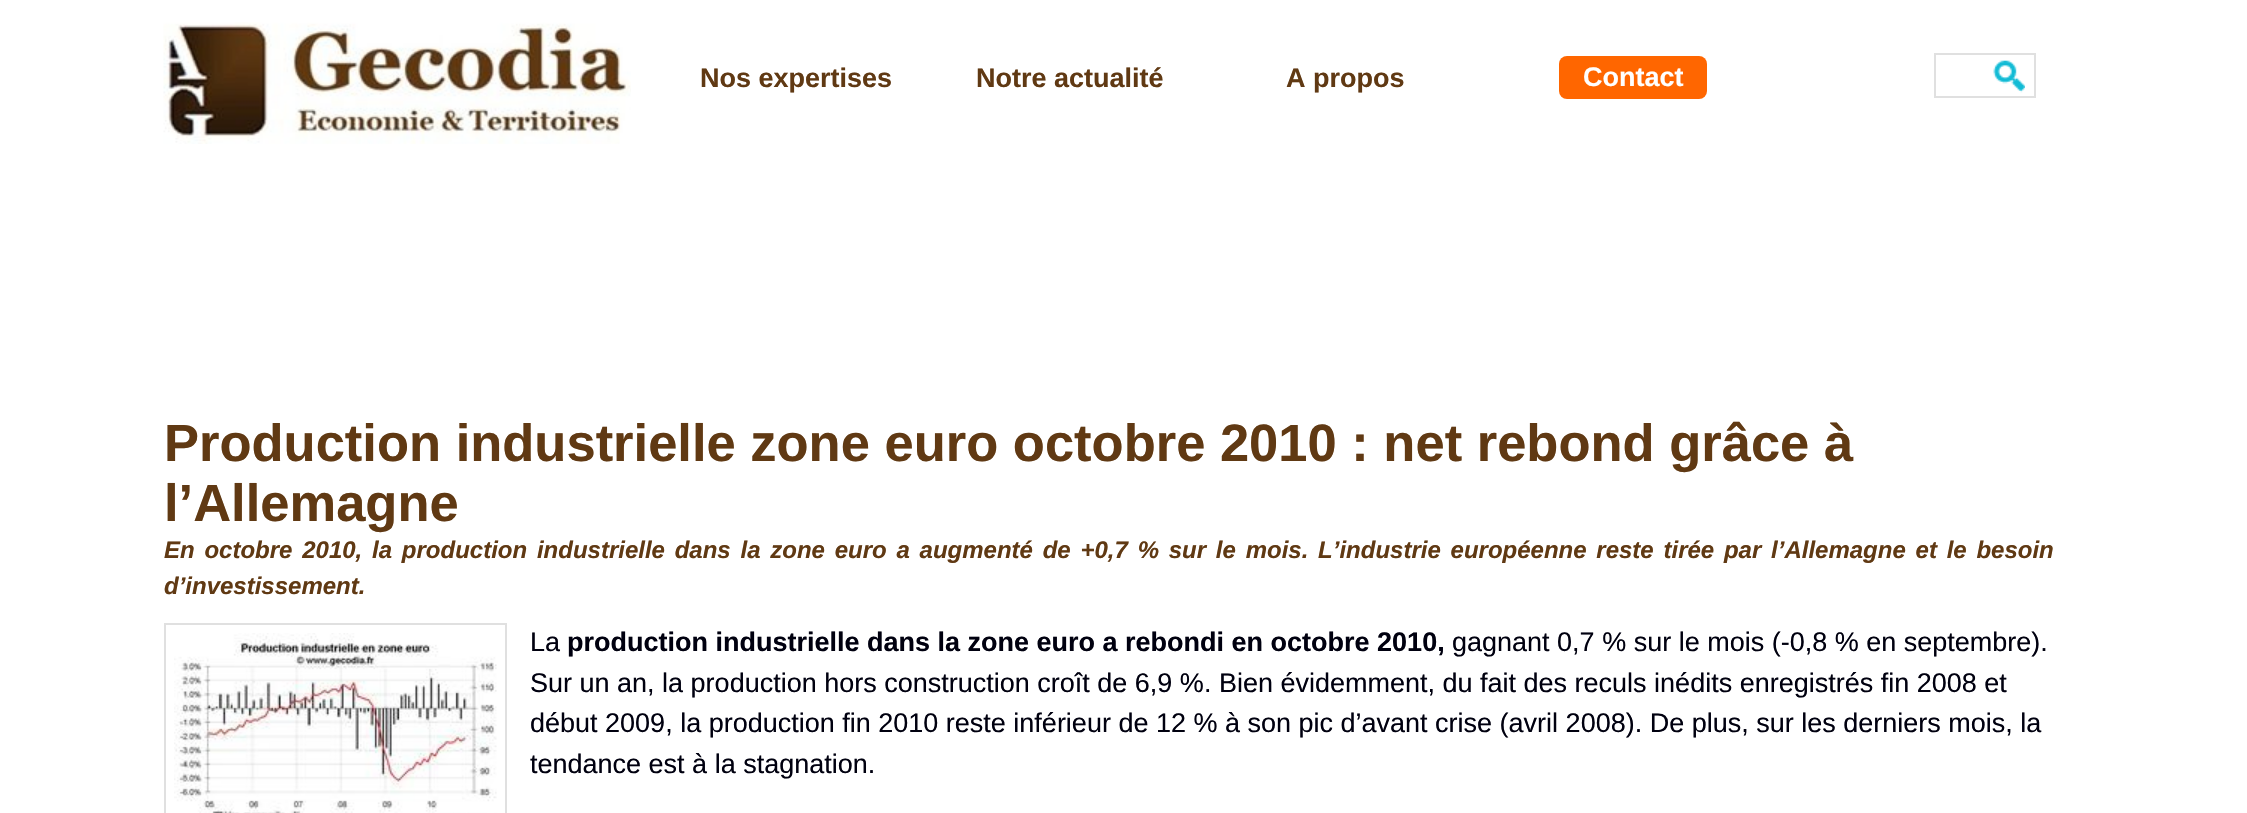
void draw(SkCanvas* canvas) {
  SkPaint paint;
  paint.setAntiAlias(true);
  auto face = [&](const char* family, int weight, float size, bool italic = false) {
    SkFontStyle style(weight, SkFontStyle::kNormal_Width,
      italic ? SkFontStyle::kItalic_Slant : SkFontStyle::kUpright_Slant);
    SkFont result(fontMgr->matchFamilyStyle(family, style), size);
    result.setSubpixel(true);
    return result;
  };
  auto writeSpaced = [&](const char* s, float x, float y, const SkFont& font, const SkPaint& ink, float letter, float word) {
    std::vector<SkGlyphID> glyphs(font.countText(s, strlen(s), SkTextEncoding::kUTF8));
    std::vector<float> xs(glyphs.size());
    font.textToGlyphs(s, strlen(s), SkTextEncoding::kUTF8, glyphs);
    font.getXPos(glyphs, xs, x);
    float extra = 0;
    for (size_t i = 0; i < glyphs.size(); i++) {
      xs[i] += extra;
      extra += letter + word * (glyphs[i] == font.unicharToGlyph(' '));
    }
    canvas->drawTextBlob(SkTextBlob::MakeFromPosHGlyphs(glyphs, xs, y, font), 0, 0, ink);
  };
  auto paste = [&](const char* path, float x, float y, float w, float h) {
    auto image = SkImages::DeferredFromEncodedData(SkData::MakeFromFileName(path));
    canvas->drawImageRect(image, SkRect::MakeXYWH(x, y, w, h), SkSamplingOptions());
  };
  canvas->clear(0xffffffff);
  paste("img/1.png", 163, 22, 468, 122);
  paint.setColor(0xffff6600);
  canvas->drawRoundRect(SkRect::MakeXYWH(1559, 56, 148, 43), 8, 8, paint);
  paste("img/2.png", 1993, 60, 32, 33);
  paint.setStroke(true);
  paint.setStrokeWidth(2);
  paint.setColor(0xffe0e0e0);
  canvas->drawRect(SkRect::MakeXYWH(1935, 54, 100, 43), paint);
  canvas->drawRect(SkRect::MakeXYWH(165, 624, 341, 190), paint);
  paste("img/3.png", 174, 633, 323, 180);
  auto f0 = face("Liberation Sans", 700, 27);
  paint.setStroke(false);
  paint.setColor(0xff603913);
  {
    const struct { const char* s; float x, y; } items[] = {
      {"Nos expertises", 700, 87},
      {"Notre actualité", 976, 87},
      {"A propos", 1286, 87},
    };
    for (auto [s, x, y] : items) {
      canvas->drawString(s, x, y, f0, paint);
    }
  }
  paint.setColor(0xffffffff);
  canvas->drawString("Contact", 1583, 86, f0, paint);
  auto f1 = face("Liberation Sans", 700, 52.5f);
  paint.setColor(0xff603913);
  canvas->drawString("Production industrielle zone euro octobre 2010 : net rebond grâce à", 164, 461, f1, paint);
  canvas->drawString("l’Allemagne", 164, 521, f1, paint);
  auto f2 = face("Liberation Sans", 700, 24, true);
  writeSpaced("En octobre 2010, la production industrielle dans la zone euro a augmenté de +0,7 % sur le mois. L’industrie européenne reste tirée par l’Allemagne et le besoin", 164, 558, f2, paint, 0, 3.1f);
  canvas->drawString("d’investissement.", 164, 594, f2, paint);
  auto f3 = face("Liberation Sans", 400, 27);
  paint.setColor(0xff00000f);
  canvas->drawString("La", 530, 651, f3, paint);
  canvas->drawString("production industrielle dans la zone euro a rebondi en octobre 2010,", 567, 651, f0, paint);
  {
    const struct { const char* s; float x, y; } items[] = {
      {"gagnant 0,7 % sur le mois (-0,8 % en septembre).", 1452, 651},
      {"Sur un an, la production hors construction croît de 6,9 %. Bien évidemment, du fait des reculs inédits enregistrés fin 2008 et", 530, 692},
      {"début 2009, la production fin 2010 reste inférieur de 12 % à son pic d’avant crise (avril 2008). De plus, sur les derniers mois, la", 530, 732},
      {"tendance est à la stagnation.", 530, 773},
    };
    for (auto [s, x, y] : items) {
      canvas->drawString(s, x, y, f3, paint);
    }
  }
}
